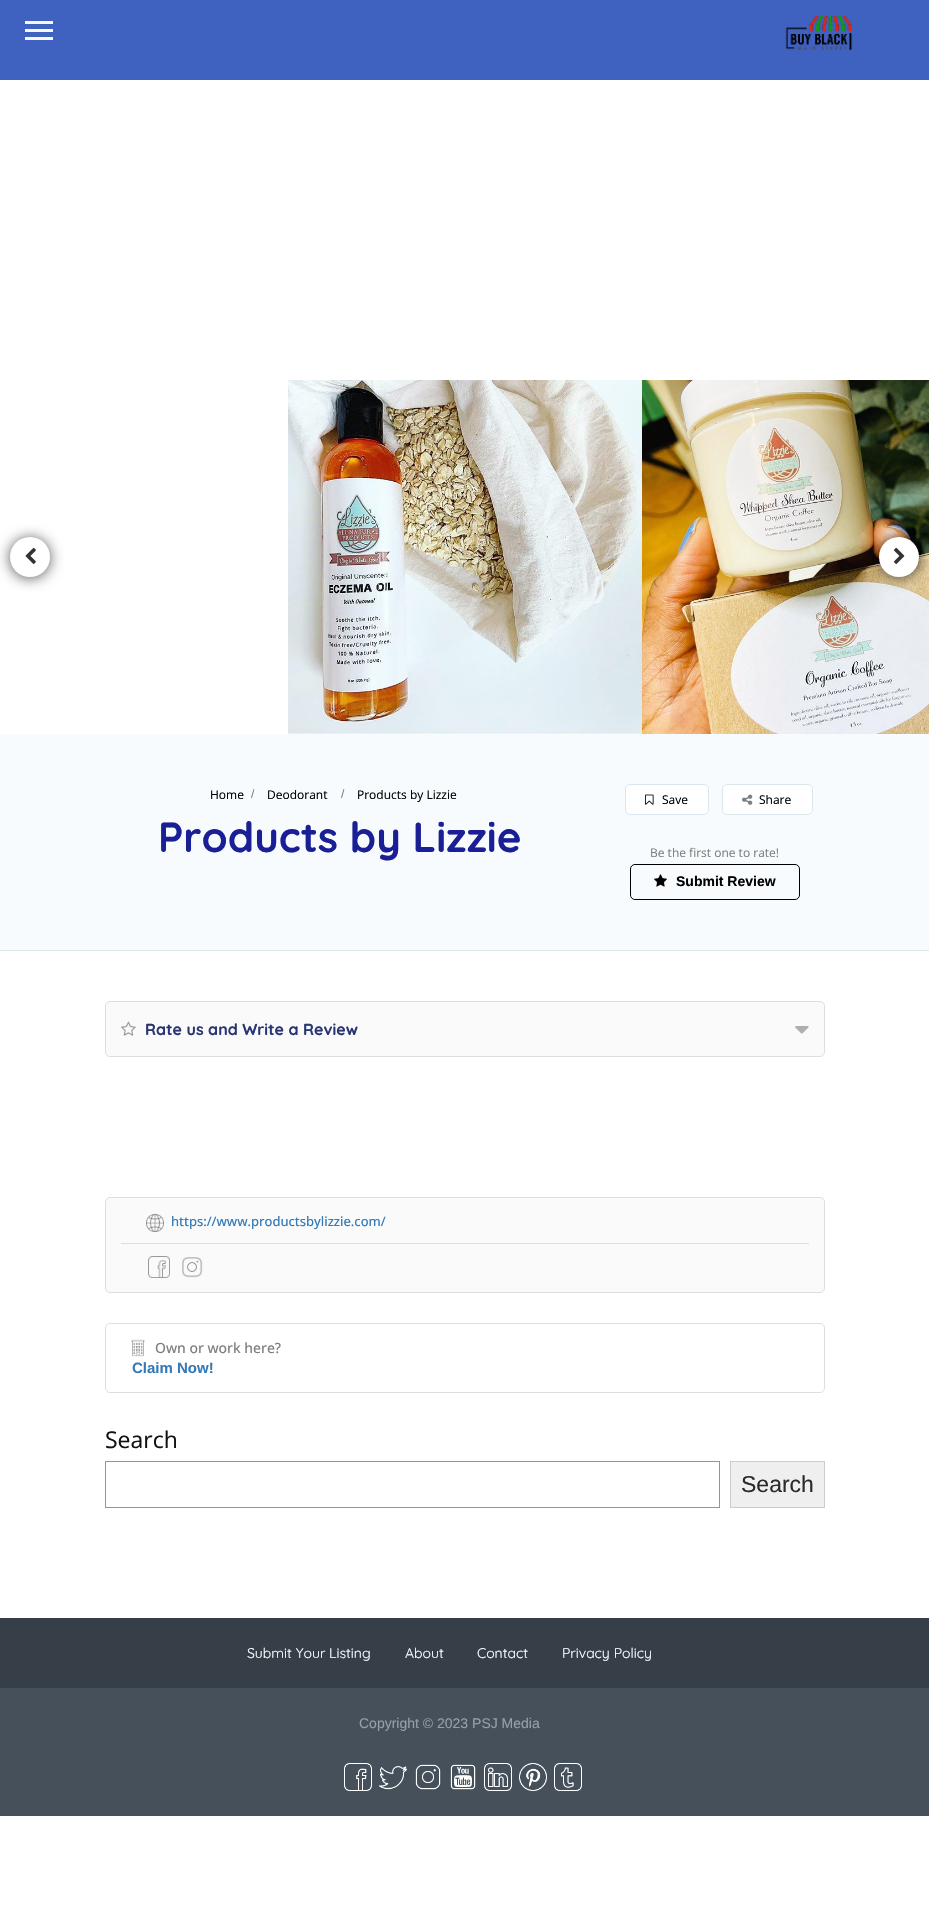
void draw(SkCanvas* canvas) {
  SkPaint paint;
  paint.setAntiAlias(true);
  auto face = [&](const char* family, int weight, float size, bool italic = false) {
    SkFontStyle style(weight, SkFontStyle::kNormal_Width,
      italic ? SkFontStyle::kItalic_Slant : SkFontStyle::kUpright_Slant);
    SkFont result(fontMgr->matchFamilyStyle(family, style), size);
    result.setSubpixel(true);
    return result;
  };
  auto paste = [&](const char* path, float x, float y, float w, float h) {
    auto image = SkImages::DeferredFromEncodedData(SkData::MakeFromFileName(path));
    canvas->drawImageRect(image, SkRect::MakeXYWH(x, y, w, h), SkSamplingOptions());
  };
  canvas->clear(0xffffffff);
  {
    const struct { float x, y, w, h; SkColor color; } items[] = {
      {0, 0, 929, 80, 0xff3f61bf},
      {25, 21, 28, 3, 0xfff7f7f7},
      {25, 29, 28, 3, 0xfff7f7f7},
      {25, 37, 28, 3, 0xfff7f7f7},
    };
    for (auto [x, y, w, h, color] : items) {
      paint.setColor(color);
      canvas->drawRect(SkRect::MakeXYWH(x, y, w, h), paint);
    }
  }
  paste("img/1.png", 785, 16, 68, 35);
  paint.setColor(0xa8000000);
  paint.setMaskFilter(SkMaskFilter::MakeBlur(kNormal_SkBlurStyle, 7));
  canvas->drawRoundRect(SkRect::MakeXYWH(10, 538, 40, 40), 20, 20, paint);
  paint.setMaskFilter(nullptr);
  paint.setColor(0xffffffff);
  canvas->drawCircle(30, 557, 20, paint);
  paste("img/2.png", 25, 547, 11, 17);
  paste("img/3.png", 288, 380, 354, 354);
  paste("img/4.png", 642, 380, 287, 354);
  paint.setColor(0xa8000000);
  paint.setMaskFilter(SkMaskFilter::MakeBlur(kNormal_SkBlurStyle, 7));
  canvas->drawRoundRect(SkRect::MakeXYWH(879, 538, 40, 40), 20, 20, paint);
  paint.setMaskFilter(nullptr);
  paint.setColor(0xffffffff);
  canvas->drawCircle(899, 557, 20, paint);
  paste("img/5.png", 893, 547, 12, 17);
  paint.setColor(0xfff7fbfe);
  canvas->drawRect(SkRect::MakeXYWH(0, 734, 929, 216), paint);
  paint.setColor(0xffdbe7ef);
  canvas->drawRect(SkRect::MakeXYWH(0, 950, 929, 1), paint);
  paint.setColor(0xffffffff);
  canvas->drawRoundRect(SkRect::MakeXYWH(625.5f, 784.5f, 83, 30), 4.5f, 4.5f, paint);
  paint.setStroke(true);
  paint.setStrokeWidth(1);
  paint.setColor(0xffdbe7ef);
  canvas->drawRoundRect(SkRect::MakeXYWH(625.5f, 784.5f, 83, 30), 4.5f, 4.5f, paint);
  paste("img/6.png", 645, 794, 9, 11);
  paint.setStroke(false);
  paint.setColor(0xffffffff);
  canvas->drawRoundRect(SkRect::MakeXYWH(722.5f, 784.5f, 90, 30), 4.5f, 4.5f, paint);
  paint.setStroke(true);
  paint.setColor(0xffdbe7ef);
  canvas->drawRoundRect(SkRect::MakeXYWH(722.5f, 784.5f, 90, 30), 4.5f, 4.5f, paint);
  paste("img/7.png", 742, 794, 11, 11);
  paint.setColor(0xff000000);
  canvas->drawRoundRect(SkRect::MakeXYWH(630.5f, 864.5f, 169, 35), 4.5f, 4.5f, paint);
  paste("img/8.png", 654, 874, 13, 13);
  paint.setStroke(false);
  paint.setColor(0xfffafafa);
  canvas->drawRoundRect(SkRect::MakeXYWH(105.5f, 1001.5f, 719, 55), 4.5f, 4.5f, paint);
  paint.setStroke(true);
  paint.setColor(0xffdedede);
  canvas->drawRoundRect(SkRect::MakeXYWH(105.5f, 1001.5f, 719, 55), 4.5f, 4.5f, paint);
  paste("img/9.png", 121, 1021, 15, 15);
  paste("img/10.png", 795, 1026, 14, 8);
  paint.setStroke(false);
  paint.setColor(0xfffafafa);
  canvas->drawRoundRect(SkRect::MakeXYWH(105.5f, 1197.5f, 719, 95), 4.5f, 4.5f, paint);
  paint.setStroke(true);
  paint.setColor(0xffdedede);
  canvas->drawRoundRect(SkRect::MakeXYWH(105.5f, 1197.5f, 719, 95), 4.5f, 4.5f, paint);
  paste("img/11.png", 146, 1214, 18, 18);
  paint.setStroke(false);
  canvas->drawRect(SkRect::MakeXYWH(121, 1243, 688, 1), paint);
  paste("img/12.png", 148, 1256, 22, 22);
  paste("img/13.png", 182, 1257, 21, 21);
  paint.setStroke(true);
  canvas->drawRoundRect(SkRect::MakeXYWH(105.5f, 1323.5f, 719, 69), 4.5f, 4.5f, paint);
  paste("img/14.png", 131, 1339, 14, 18);
  paint.setColor(0xff949494);
  canvas->drawRect(SkRect::MakeXYWH(105.5f, 1461.5f, 614, 46), paint);
  paint.setStroke(false);
  paint.setColor(0xffefefef);
  canvas->drawRect(SkRect::MakeXYWH(730.5f, 1461.5f, 94, 46), paint);
  paint.setStroke(true);
  paint.setColor(0xffcccccc);
  canvas->drawRect(SkRect::MakeXYWH(730.5f, 1461.5f, 94, 46), paint);
  paint.setStroke(false);
  paint.setColor(0xff363f48);
  canvas->drawRect(SkRect::MakeXYWH(0, 1618, 929, 70), paint);
  paint.setColor(0xff45505b);
  canvas->drawRect(SkRect::MakeXYWH(0, 1688, 929, 128), paint);
  paste("img/15.png", 344, 1763, 28, 28);
  paste("img/16.png", 379, 1766, 28, 24);
  paste("img/17.png", 415, 1764, 26, 26);
  paste("img/18.png", 450, 1764, 26, 26);
  paste("img/19.png", 484, 1763, 28, 28);
  paste("img/20.png", 519, 1763, 28, 28);
  paste("img/21.png", 554, 1763, 28, 28);
  auto f0 = face("Open Sans", 400, 12);
  paint.setColor(0xff000000);
  canvas->drawString("Home", 210, 799, f0, paint);
  auto f1 = face("Liberation Sans", 400, 12);
  paint.setColor(0xff7f7f7f);
  canvas->drawString("/", 251, 798, f1, paint);
  paint.setColor(0xff000000);
  canvas->drawString("Deodorant", 267, 799, f0, paint);
  paint.setColor(0xff7f7f7f);
  canvas->drawString("/", 341, 798, f1, paint);
  paint.setColor(0xff000000);
  canvas->drawString("Products by Lizzie", 357, 799, f0, paint);
  auto f2 = face("Quicksand", 700, 42);
  paint.setColor(0xff1b1f96);
  canvas->drawString("Products by Lizzie", 158, 852, f2, paint);
  paint.setColor(0xff000000);
  canvas->drawString("Save", 662, 804, f0, paint);
  canvas->drawString("Share", 759, 804, f0, paint);
  paint.setColor(0xff7f7f7f);
  canvas->drawString("Be the first one to rate!", 650, 857, f0, paint);
  auto f3 = face("Liberation Sans", 700, 14);
  paint.setColor(0xff000000);
  canvas->drawString("Submit Review", 676, 886, f3, paint);
  auto f4 = face("Quicksand", 700, 16);
  paint.setColor(0xff293572);
  canvas->drawString("Rate us and Write a Review", 145, 1035, f4, paint);
  auto f5 = face("Open Sans", 500, 13);
  paint.setColor(0xff337ab7);
  canvas->drawString("https://www.productsbylizzie.com/", 171, 1226, f5, paint);
  auto f6 = face("Open Sans", 500, 14);
  paint.setColor(0xff7f7f7f);
  canvas->drawString("Own or work here?", 155, 1353, f6, paint);
  auto f7 = face("Liberation Sans", 700, 15);
  paint.setColor(0xff337ab7);
  canvas->drawString("Claim Now!", 132, 1373, f7, paint);
  auto f8 = face("Open Sans", 400, 23);
  paint.setColor(0xff111111);
  canvas->drawString("Search", 105, 1448, f8, paint);
  auto f9 = face("Liberation Sans", 400, 23);
  paint.setColor(0xff2b2b2b);
  canvas->drawString("Search", 741, 1492, f9, paint);
  auto f10 = face("Quicksand", 400, 14);
  paint.setColor(0xffffffff);
  {
    const struct { const char* s; float x, y; } items[] = {
      {"Submit Your Listing", 247, 1658},
      {"About", 405, 1658},
      {"Contact", 477, 1658},
      {"Privacy Policy", 562, 1658},
    };
    for (auto [s, x, y] : items) {
      canvas->drawString(s, x, y, f10, paint);
    }
  }
  auto f11 = face("Liberation Sans", 400, 14);
  paint.setColor(0xff96a0a9);
  canvas->drawString("Copyright © 2023 PSJ Media", 359, 1728, f11, paint);
}
